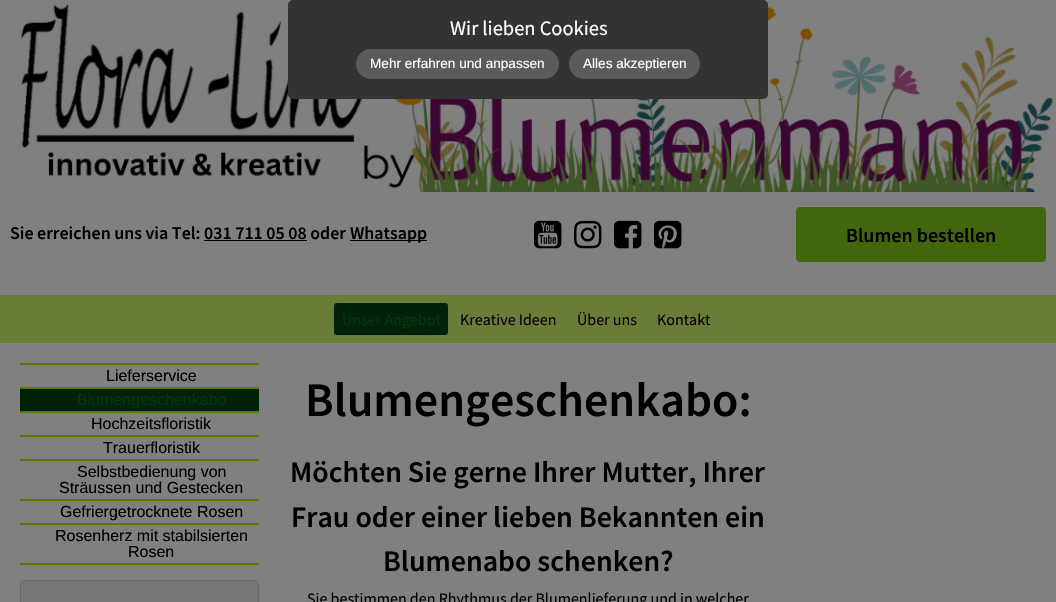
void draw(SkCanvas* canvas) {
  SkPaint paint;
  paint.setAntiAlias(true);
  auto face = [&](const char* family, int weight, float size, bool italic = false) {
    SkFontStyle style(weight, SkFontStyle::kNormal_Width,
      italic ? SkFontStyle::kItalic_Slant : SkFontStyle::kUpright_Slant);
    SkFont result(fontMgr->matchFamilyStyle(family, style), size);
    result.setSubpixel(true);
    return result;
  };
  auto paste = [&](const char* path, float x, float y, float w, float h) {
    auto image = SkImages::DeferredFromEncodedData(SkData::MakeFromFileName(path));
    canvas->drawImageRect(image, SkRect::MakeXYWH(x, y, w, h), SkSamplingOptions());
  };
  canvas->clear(0xff808080);
  paste("img/1.png", 20, 2, 1034, 190);
  paint.setColor(0xff333333);
  canvas->drawRoundRect(SkRect::MakeXYWH(288, 0, 480, 99), 5, 5, paint);
  paint.setColor(0xff5b5b5b);
  canvas->drawRoundRect(SkRect::MakeXYWH(356, 49, 203, 30), 15, 15, paint);
  canvas->drawRoundRect(SkRect::MakeXYWH(569, 49, 131, 30), 15, 15, paint);
  paint.setColor(0xff000000);
  canvas->drawRect(SkRect::MakeXYWH(350, 240, 77, 1), paint);
  canvas->drawRect(SkRect::MakeXYWH(204, 240, 103, 1), paint);
  paste("img/2.png", 534, 220, 28, 29);
  paste("img/3.png", 574, 220, 28, 29);
  paste("img/4.png", 614, 220, 28, 29);
  paste("img/5.png", 654, 220, 28, 29);
  paint.setColor(0xff42660b);
  canvas->drawRoundRect(SkRect::MakeXYWH(796.5f, 207.5f, 249, 54), 3.5f, 3.5f, paint);
  paint.setStroke(true);
  paint.setStrokeWidth(1);
  canvas->drawRoundRect(SkRect::MakeXYWH(796.5f, 207.5f, 249, 54), 3.5f, 3.5f, paint);
  paint.setStroke(false);
  paint.setColor(0xff697c38);
  canvas->drawRect(SkRect::MakeXYWH(0, 295, 1056, 48), paint);
  paint.setColor(0xff022106);
  canvas->drawRoundRect(SkRect::MakeXYWH(334, 303, 114, 32), 3, 3, paint);
  {
    const struct { float x, y, w, h; SkColor color; } items[] = {
      {20, 363, 239, 2, 0xff587a01},
      {20, 387, 239, 2, 0xff587a01},
      {20, 389, 239, 22, 0xff022106},
      {20, 411, 239, 2, 0xff587a01},
      {20, 435, 239, 2, 0xff587a01},
      {20, 459, 239, 2, 0xff587a01},
      {20, 499, 239, 2, 0xff587a01},
      {20, 523, 239, 2, 0xff587a01},
      {20, 563, 239, 2, 0xff587a01},
    };
    for (auto [x, y, w, h, color] : items) {
      paint.setColor(color);
      canvas->drawRect(SkRect::MakeXYWH(x, y, w, h), paint);
    }
  }
  paint.setColor(0xff777777);
  canvas->drawRoundRect(SkRect::MakeXYWH(20.5f, 580.5f, 238, 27), 4.5f, 4.5f, paint);
  paint.setStroke(true);
  paint.setColor(0xff686868);
  canvas->drawRoundRect(SkRect::MakeXYWH(20.5f, 580.5f, 238, 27), 4.5f, 4.5f, paint);
  auto f0 = face("Source Sans Pro", 400, 20.5f);
  paint.setStroke(false);
  paint.setColor(0xffffffff);
  canvas->drawString("Wir lieben Cookies", 450, 35, f0, paint);
  auto f1 = face("Liberation Sans", 400, 13.6f);
  canvas->drawString("Mehr erfahren und anpassen", 370, 68, f1, paint);
  canvas->drawString("Alles akzeptieren", 583, 68, f1, paint);
  auto f2 = face("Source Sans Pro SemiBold", 600, 17.9f);
  paint.setColor(0xff000000);
  canvas->drawString("Sie erreichen uns via Tel: 031 711 05 08 oder", 10, 239, f2, paint);
  canvas->drawString("Whatsapp", 350, 239, f2, paint);
  auto f3 = face("Source Sans Pro SemiBold", 600, 20);
  canvas->drawString("Blumen bestellen", 846, 242, f3, paint);
  auto f4 = face("Source Sans Pro", 400, 16);
  paint.setColor(0xff04360b);
  canvas->drawString("Unser Angebot", 342, 325, f4, paint);
  paint.setColor(0xff080008);
  {
    const struct { const char* s; float x, y; } items[] = {
      {"Kreative Ideen", 460, 325},
      {"Über uns", 577, 325},
      {"Kontakt", 657, 325},
    };
    for (auto [s, x, y] : items) {
      canvas->drawString(s, x, y, f4, paint);
    }
  }
  auto f5 = face("Liberation Sans", 400, 16);
  paint.setColor(0xff000000);
  canvas->drawString("Lieferservice", 106, 381, f5, paint);
  paint.setColor(0xff04360b);
  canvas->drawString("Blumengeschenkabo", 77, 405, f5, paint);
  paint.setColor(0xff000000);
  {
    const struct { const char* s; float x, y; } items[] = {
      {"Hochzeitsfloristik", 91, 429},
      {"Trauerfloristik", 103, 453},
      {"Selbstbedienung von", 77, 477},
      {"Sträussen und Gestecken", 59, 493},
      {"Gefriergetrocknete Rosen", 60, 517},
      {"Rosenherz mit stabilsierten", 55, 541},
      {"Rosen", 128, 557},
    };
    for (auto [s, x, y] : items) {
      canvas->drawString(s, x, y, f5, paint);
    }
  }
  auto f6 = face("Source Sans Pro SemiBold", 600, 48);
  canvas->drawString("Blumengeschenkabo:", 305, 416, f6, paint);
  auto f7 = face("Source Sans Pro SemiBold", 600, 29.9f);
  {
    const struct { const char* s; float x, y; } items[] = {
      {"Möchten Sie gerne Ihrer Mutter, Ihrer", 290, 482},
      {"Frau oder einer lieben Bekannten ein", 291, 527},
      {"Blumenabo schenken?", 383, 571},
    };
    for (auto [s, x, y] : items) {
      canvas->drawString(s, x, y, f7, paint);
    }
  }
  canvas->drawString("Sie bestimmen den Rhythmus der Blumenlieferung und in welcher", 307, 604, f4, paint);
}
